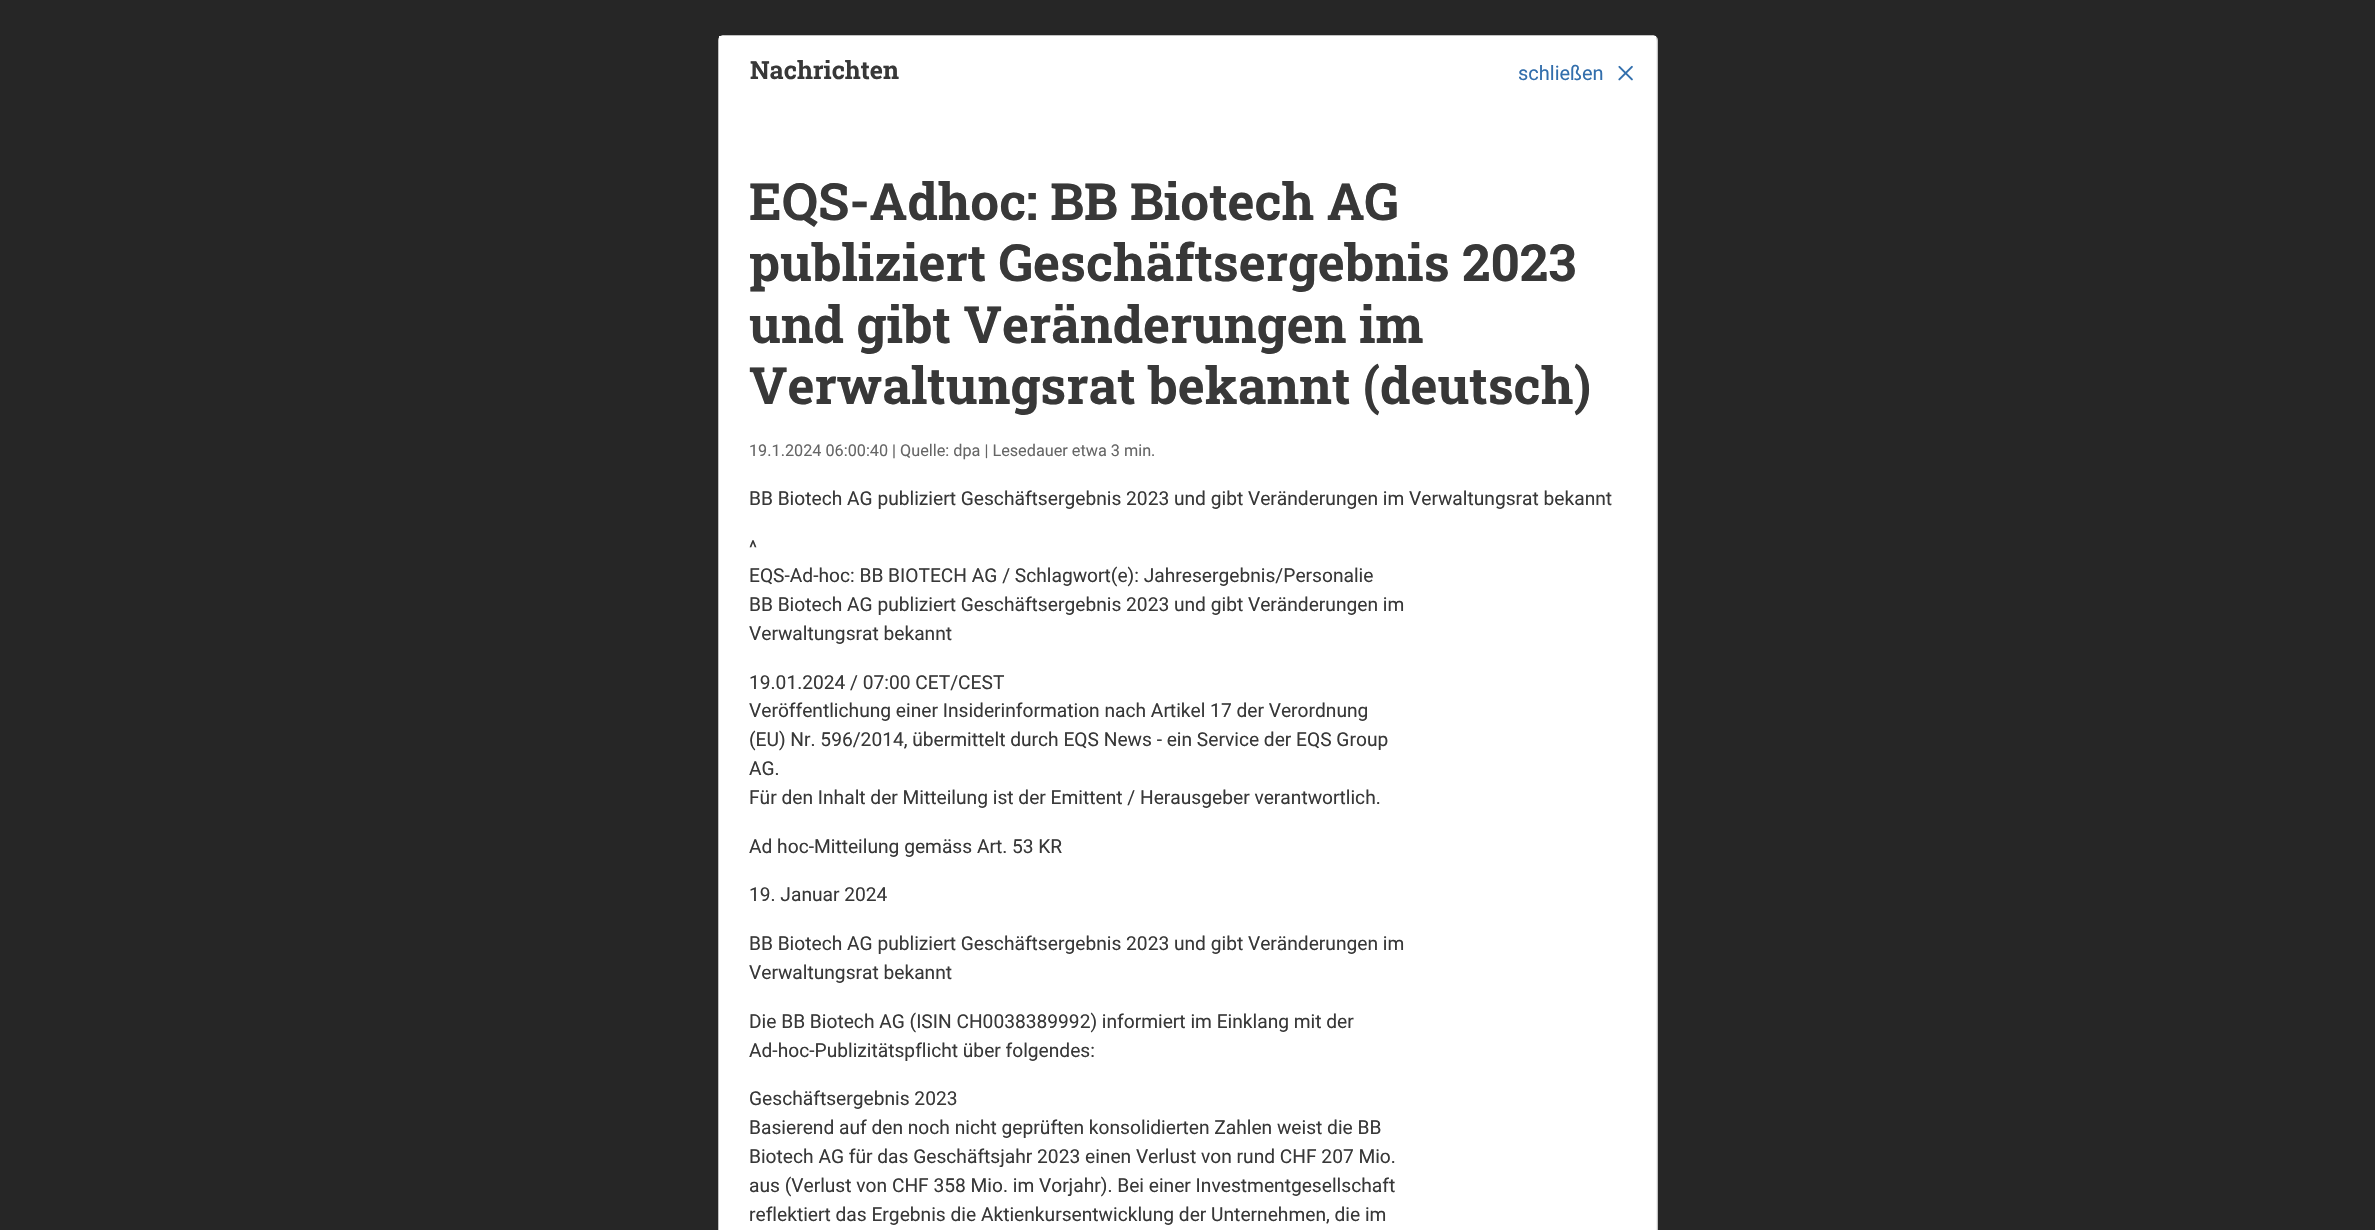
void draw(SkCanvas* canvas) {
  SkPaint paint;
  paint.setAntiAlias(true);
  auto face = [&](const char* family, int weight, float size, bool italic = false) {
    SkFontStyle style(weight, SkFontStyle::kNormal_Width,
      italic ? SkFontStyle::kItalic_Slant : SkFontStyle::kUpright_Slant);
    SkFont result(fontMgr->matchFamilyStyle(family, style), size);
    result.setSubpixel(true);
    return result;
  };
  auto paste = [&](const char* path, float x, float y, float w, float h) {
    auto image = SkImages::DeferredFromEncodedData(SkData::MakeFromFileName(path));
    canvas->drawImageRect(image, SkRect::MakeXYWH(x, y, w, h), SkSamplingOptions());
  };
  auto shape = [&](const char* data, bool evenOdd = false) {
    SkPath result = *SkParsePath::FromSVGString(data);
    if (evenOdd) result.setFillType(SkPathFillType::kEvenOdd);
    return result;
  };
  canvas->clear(0xff262626);
  paint.setColor(0xfff1f1f1);
  canvas->drawPath(shape("M724 35H1652C1655.5 35 1658 37.5 1658 41V1230H718V41C718 37.5 720.5 35 724 35Z"), paint);
  paint.setStroke(true);
  paint.setStrokeWidth(1);
  paint.setColor(0x33000000);
  canvas->drawRoundRect(SkRect::MakeXYWH(718.5f, 35.5f, 939, 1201), 5.5f, 5.5f, paint);
  paint.setStroke(false);
  paint.setColor(0xffffffff);
  canvas->drawRect(SkRect::MakeXYWH(719, 36, 937, 1194), paint);
  paste("img/1.png", 1618, 65, 15, 16);
  auto f0 = face("Roboto Slab", 700, 25);
  paint.setColor(0xff383838);
  canvas->drawString("Nachrichten", 750, 79, f0, paint);
  auto f1 = face("Roboto", 400, 20);
  paint.setColor(0xff326eac);
  canvas->drawString("schließen", 1518, 80, f1, paint);
  auto f2 = face("Roboto Slab", 700, 51.25f);
  paint.setColor(0xff383838);
  {
    const struct { const char* s; float x, y; } items[] = {
      {"EQS-Adhoc: BB Biotech AG", 749, 220},
      {"publiziert Geschäftsergebnis 2023", 749, 281},
      {"und gibt Veränderungen im", 749, 343},
      {"Verwaltungsrat bekannt (deutsch)", 749, 404},
    };
    for (auto [s, x, y] : items) {
      canvas->drawString(s, x, y, f2, paint);
    }
  }
  auto f3 = face("Roboto", 400, 16.25f);
  paint.setColor(0xff666666);
  canvas->drawString("19.1.2024 06:00:40 | Quelle: dpa | Lesedauer etwa 3 min.", 749, 456, f3, paint);
  auto f4 = face("Roboto", 400, 19.2f);
  paint.setColor(0xff383838);
  {
    const struct { const char* s; float x, y; } items[] = {
      {"BB Biotech AG publiziert Geschäftsergebnis 2023 und gibt Veränderungen im Verwaltungsrat bekannt", 749, 505},
      {"^", 749, 554},
      {"EQS-Ad-hoc: BB BIOTECH AG / Schlagwort(e): Jahresergebnis/Personalie", 749, 582},
      {"BB Biotech AG publiziert Geschäftsergebnis 2023 und gibt Veränderungen im", 749, 611},
      {"Verwaltungsrat bekannt", 749, 640},
      {"19.01.2024 / 07:00 CET/CEST", 749, 689},
      {"Veröffentlichung einer Insiderinformation nach Artikel 17 der Verordnung", 749, 717},
      {"(EU) Nr. 596/2014, übermittelt durch EQS News - ein Service der EQS Group", 749, 746},
      {"AG.", 749, 775},
      {"Für den Inhalt der Mitteilung ist der Emittent / Herausgeber verantwortlich.", 749, 804},
      {"Ad hoc-Mitteilung gemäss Art. 53 KR", 749, 853},
      {"19. Januar 2024", 749, 901},
      {"BB Biotech AG publiziert Geschäftsergebnis 2023 und gibt Veränderungen im", 749, 950},
      {"Verwaltungsrat bekannt", 749, 979},
      {"Die BB Biotech AG (ISIN CH0038389992) informiert im Einklang mit der", 749, 1028},
      {"Ad-hoc-Publizitätspflicht über folgendes:", 749, 1057},
      {"Geschäftsergebnis 2023", 749, 1105},
      {"Basierend auf den noch nicht geprüften konsolidierten Zahlen weist die BB", 749, 1134},
      {"Biotech AG für das Geschäftsjahr 2023 einen Verlust von rund CHF 207 Mio.", 749, 1163},
      {"aus (Verlust von CHF 358 Mio. im Vorjahr). Bei einer Investmentgesellschaft", 749, 1192},
      {"reflektiert das Ergebnis die Aktienkursentwicklung der Unternehmen, die im", 749, 1221},
    };
    for (auto [s, x, y] : items) {
      canvas->drawString(s, x, y, f4, paint);
    }
  }
}
